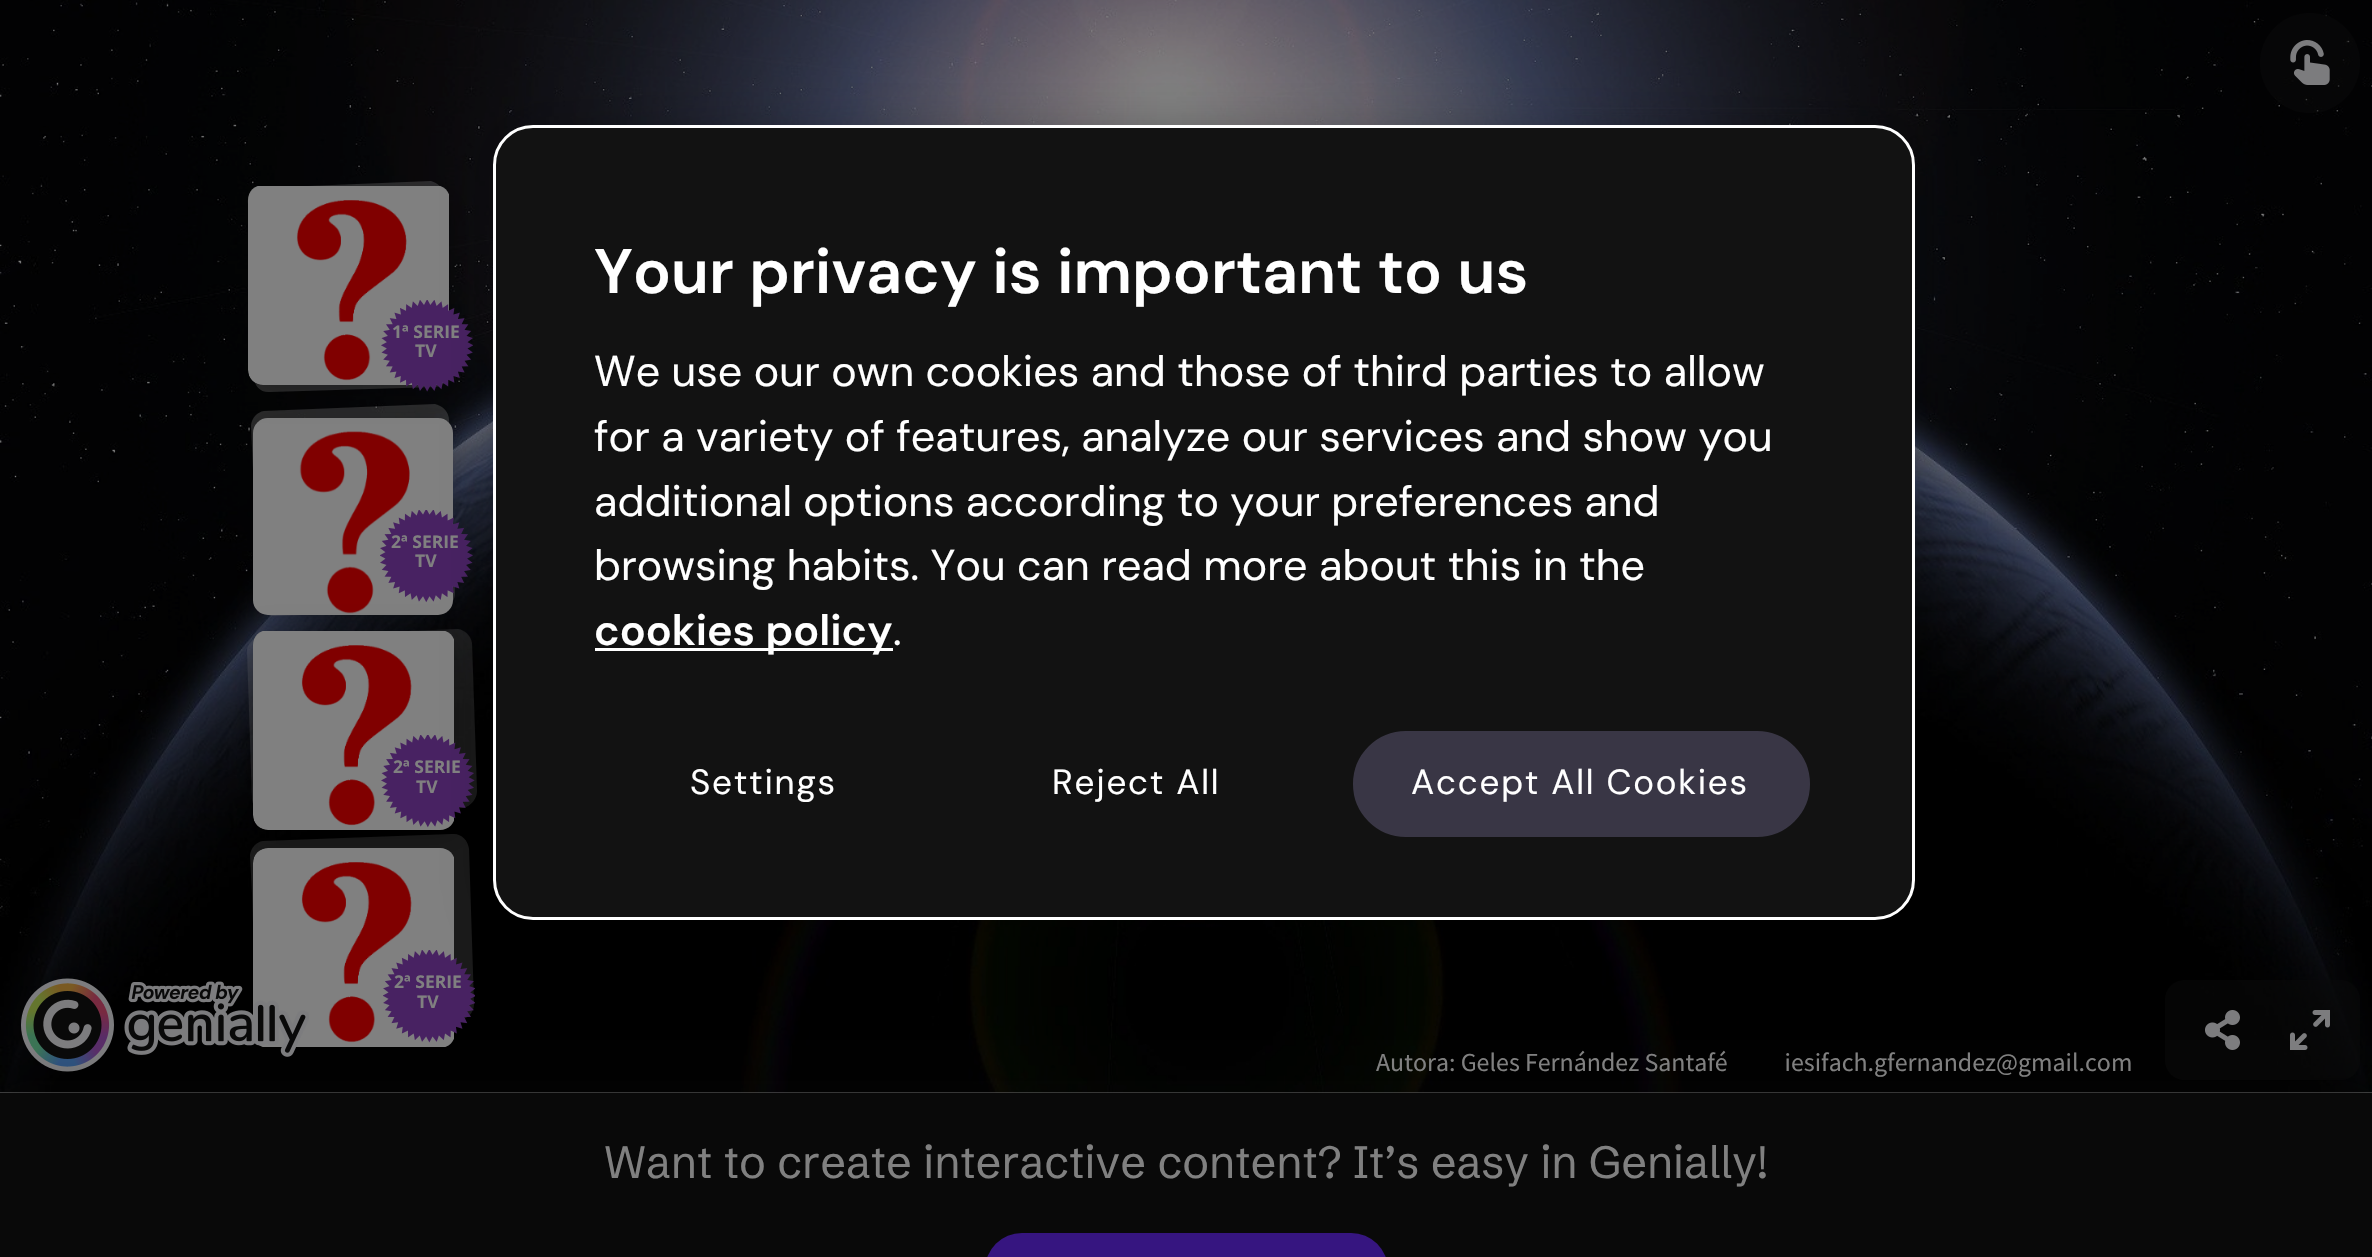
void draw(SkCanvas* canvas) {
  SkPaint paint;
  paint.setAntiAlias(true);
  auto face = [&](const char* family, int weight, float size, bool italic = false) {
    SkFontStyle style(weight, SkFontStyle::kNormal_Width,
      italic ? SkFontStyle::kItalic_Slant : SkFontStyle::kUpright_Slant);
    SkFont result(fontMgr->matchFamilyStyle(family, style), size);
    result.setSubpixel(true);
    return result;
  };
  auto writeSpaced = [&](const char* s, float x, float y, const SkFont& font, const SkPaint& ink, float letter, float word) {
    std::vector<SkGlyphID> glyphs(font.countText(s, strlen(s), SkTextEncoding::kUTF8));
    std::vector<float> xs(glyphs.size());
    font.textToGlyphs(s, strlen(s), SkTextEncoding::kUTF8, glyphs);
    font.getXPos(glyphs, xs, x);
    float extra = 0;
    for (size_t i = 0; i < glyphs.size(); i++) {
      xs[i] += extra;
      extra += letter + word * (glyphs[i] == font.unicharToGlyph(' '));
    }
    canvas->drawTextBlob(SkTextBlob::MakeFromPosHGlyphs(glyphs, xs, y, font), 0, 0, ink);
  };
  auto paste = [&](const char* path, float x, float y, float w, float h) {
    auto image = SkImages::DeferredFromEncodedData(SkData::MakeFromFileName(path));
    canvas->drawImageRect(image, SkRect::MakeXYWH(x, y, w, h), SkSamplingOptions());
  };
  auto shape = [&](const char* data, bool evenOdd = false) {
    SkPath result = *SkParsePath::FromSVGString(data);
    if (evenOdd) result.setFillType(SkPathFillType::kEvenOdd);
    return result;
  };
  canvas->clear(0xff808080);
  paste("img/1.png", 0, 0, 2372, 1093);
  paint.setColor(0x4d808080);
  canvas->drawPath(shape("M254 493L258 600C258 609 265 616 274 616L439 610C448 610 455 602 455 593L449 420C449 412 443 406 435 404L264 411C257 412 252 418 251 425Z"), paint);
  paint.setColor(0x33808080);
  canvas->drawPath(shape("M252 800C253 808 261 815 269 814L463 808C471 806 477 799 477 791L472 643C471 636 465 630 458 629L259 637C253 638 248 644 247 650Z"), paint);
  canvas->save();
  canvas->clipPath(shape("M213 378H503V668H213ZM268 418H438C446.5 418 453 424.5 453 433V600C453 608.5 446.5 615 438 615H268C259.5 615 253 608.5 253 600V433C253 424.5 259.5 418 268 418Z", true), true);
  paint.setColor(0x40000000);
  paint.setMaskFilter(SkMaskFilter::MakeBlur(kNormal_SkBlurStyle, 14.5f));
  canvas->drawRoundRect(SkRect::MakeXYWH(258, 423, 200, 200), 15, 15, paint);
  paint.setMaskFilter(nullptr);
  canvas->restore();
  paint.setColor(0x4d808080);
  canvas->drawPath(shape("M444 194C443 188 438 183 431 181L259 188C252 189 247 196 248 204L254 377C254 386 261 393 270 392L435 387C443 386 449 380 451 373Z"), paint);
  paint.setColor(0xff808080);
  canvas->drawRoundRect(SkRect::MakeXYWH(253, 418, 200, 197), 15, 15, paint);
  paste("img/5.png", 299, 431, 111, 183);
  paint.setColor(0x40000000);
  paint.setMaskFilter(SkMaskFilter::MakeBlur(kNormal_SkBlurStyle, 14.5f));
  canvas->drawRoundRect(SkRect::MakeXYWH(253, 193, 202, 197), 15, 15, paint);
  paint.setMaskFilter(nullptr);
  canvas->save();
  canvas->clipPath(shape("M263 185H435C443.5 185 450 191.5 450 200V370C450 378.5 443.5 385 435 385H263C254.5 385 248 378.5 248 370V200C248 191.5 254.5 185 263 185Z"), true);
  paint.setColor(0xff808080);
  canvas->drawPath(shape("M248 186H449V385H263C254.5 385 248 378.5 248 370Z"), paint);
  canvas->restore();
  paste("img/3.png", 296, 200, 111, 181);
  paste("img/4.png", 381, 300, 92, 92);
  paint.setColor(0x33808080);
  canvas->drawPath(shape("M252 893L256 1011C256 1019 262 1025 269 1027L458 1020C467 1020 474 1013 474 1004L469 849C468 840 461 833 452 834L263 841C256 842 251 848 250 855Z"), paint);
  paint.setColor(0x40000000);
  paint.setMaskFilter(SkMaskFilter::MakeBlur(kNormal_SkBlurStyle, 14.5f));
  canvas->drawRoundRect(SkRect::MakeXYWH(258, 638, 202, 197), 15, 15, paint);
  paint.setMaskFilter(nullptr);
  paste("img/6.png", 380, 510, 93, 93);
  canvas->save();
  canvas->clipPath(shape("M268 630H440C448.5 630 455 636.5 455 645V815C455 823.5 448.5 830 440 830H268C259.5 830 253 823.5 253 815V645C253 636.5 259.5 630 268 630Z"), true);
  paint.setColor(0xff808080);
  canvas->drawPath(shape("M253 631H454V830H268C259.5 830 253 823.5 253 815Z"), paint);
  canvas->restore();
  paste("img/7.png", 301, 645, 111, 181);
  paste("img/8.png", 381, 735, 94, 93);
  canvas->save();
  canvas->clipPath(shape("M268 848H440C448.5 848 455 854.5 455 863V1033C455 1041.5 448.5 1048 440 1048H268C259.5 1048 253 1041.5 253 1033V863C253 854.5 259.5 848 268 848Z"), true);
  canvas->drawPath(shape("M268 848H454V1047H253V863C253 854.5 259.5 848 268 848Z"), paint);
  canvas->restore();
  paste("img/9.png", 301, 862, 111, 181);
  paste("img/10.png", 383, 950, 92, 93);
  paint.setColor(0x33000000);
  paint.setMaskFilter(SkMaskFilter::MakeBlur(kNormal_SkBlurStyle, 22.5f));
  canvas->drawRoundRect(SkRect::MakeXYWH(493, 125, 1422, 795), 40, 40, paint);
  paint.setMaskFilter(nullptr);
  paint.setColor(0xff121212);
  canvas->drawRoundRect(SkRect::MakeXYWH(494.5f, 126.5f, 1419, 792), 38.5f, 38.5f, paint);
  paint.setStroke(true);
  paint.setStrokeWidth(3);
  paint.setColor(0xffffffff);
  canvas->drawRoundRect(SkRect::MakeXYWH(494.5f, 126.5f, 1419, 792), 38.5f, 38.5f, paint);
  paint.setStroke(false);
  canvas->drawRect(SkRect::MakeXYWH(595, 648, 298, 3), paint);
  paint.setColor(0xff393645);
  canvas->drawRoundRect(SkRect::MakeXYWH(1351.5f, 729.5f, 460, 109), 54.5f, 54.5f, paint);
  paint.setStroke(true);
  paint.setColor(0xff121212);
  canvas->drawRoundRect(SkRect::MakeXYWH(1351.5f, 729.5f, 460, 109), 54.5f, 54.5f, paint);
  paste("img/2.png", 21, 978, 288, 94);
  paint.setStroke(false);
  paint.setColor(0x80090909);
  canvas->drawCircle(2310, 63, 50, paint);
  paste("img/11.png", 2290, 40, 40, 45);
  canvas->drawRoundRect(SkRect::MakeXYWH(2165, 980, 195, 100), 20, 20, paint);
  paste("img/12.png", 2205, 1010, 35, 40);
  paste("img/13.png", 2290, 1010, 40, 40);
  paint.setColor(0x4d090909);
  paint.setMaskFilter(SkMaskFilter::MakeBlur(kNormal_SkBlurStyle, 16));
  canvas->drawRect(SkRect::MakeXYWH(0, 1088, 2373, 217), paint);
  paint.setMaskFilter(nullptr);
  paint.setColor(0xff090909);
  canvas->drawRect(SkRect::MakeXYWH(0, 1093, 2372, 164), paint);
  paint.setColor(0xff361580);
  canvas->drawRoundRect(SkRect::MakeXYWH(985, 1233, 403, 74), 50, 50, paint);
  auto f0 = face("DM Sans", 600, 63);
  paint.setColor(0xffffffff);
  canvas->drawString("Your privacy is important to us", 594, 293, f0, paint);
  auto f1 = face("DM Sans", 400, 43.05f);
  canvas->drawString("We use our own cookies and those of third parties to allow", 594, 386, f1, paint);
  canvas->drawString("for a variety of features, analyze our services and show you", 594, 451, f1, paint);
  writeSpaced("additional options according to your preferences and", 594, 516, f1, paint, 0, -0.25f);
  canvas->drawString("browsing habits. You can read more about this in the", 594, 580, f1, paint);
  auto f2 = face("DM Sans", 600, 43.05f);
  canvas->drawString("cookies policy", 594, 645, f2, paint);
  canvas->drawString(".", 893, 645, f1, paint);
  auto f3 = face("DM Sans", 400, 35);
  {
    const struct { const char* s; float x, y; } items[] = {
      {"Settings", 690, 794},
      {"Reject All", 1052, 794},
      {"Accept All Cookies", 1411, 794},
    };
    for (auto [s, x, y] : items) {
      writeSpaced(s, x, y, f3, paint, 1.75f, 0);
    }
  }
  auto f4 = face("Open Sans", 700, 17.5f);
  paint.setColor(0xff808080);
  {
    const struct { const char* s; float x, y; } items[] = {
      {"1ª SERIE", 392, 338},
      {"TV", 415, 357},
      {"2ª SERIE", 391, 548},
      {"TV", 415, 567},
      {"2ª SERIE", 393, 773},
      {"TV", 416, 793},
      {"2ª SERIE", 394, 988},
      {"TV", 417, 1008},
    };
    for (auto [s, x, y] : items) {
      canvas->drawString(s, x, y, f4, paint);
    }
  }
  auto f5 = face("Source Sans Pro", 400, 25.9f);
  canvas->drawString("Autora: Geles Fernández Santafé           iesifach.gfernandez@gmail.com", 1376, 1071, f5, paint);
  auto f6 = face("Schibsted Grotesk", 400, 45);
  canvas->drawString("Want to create interactive content? It’s easy in Genially!", 604, 1178, f6, paint);
}
